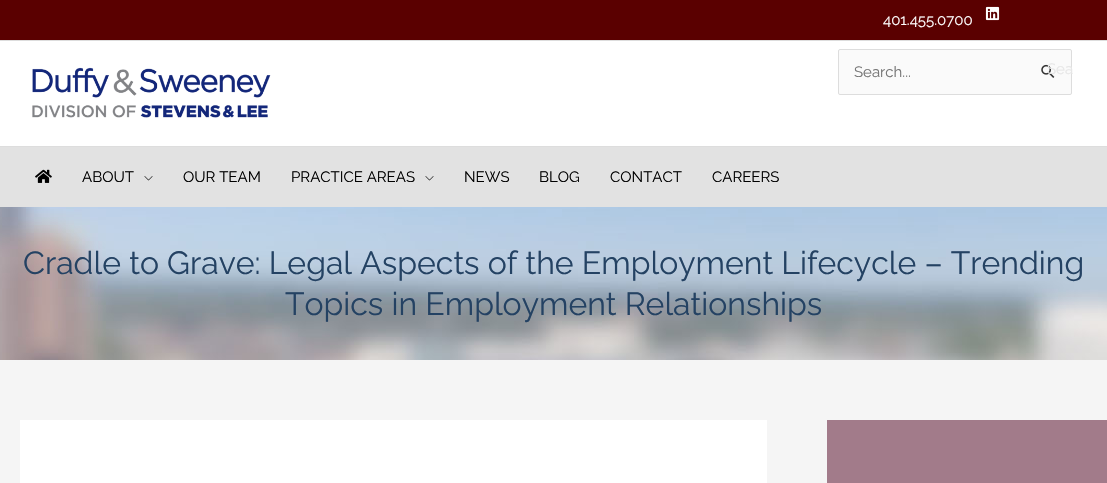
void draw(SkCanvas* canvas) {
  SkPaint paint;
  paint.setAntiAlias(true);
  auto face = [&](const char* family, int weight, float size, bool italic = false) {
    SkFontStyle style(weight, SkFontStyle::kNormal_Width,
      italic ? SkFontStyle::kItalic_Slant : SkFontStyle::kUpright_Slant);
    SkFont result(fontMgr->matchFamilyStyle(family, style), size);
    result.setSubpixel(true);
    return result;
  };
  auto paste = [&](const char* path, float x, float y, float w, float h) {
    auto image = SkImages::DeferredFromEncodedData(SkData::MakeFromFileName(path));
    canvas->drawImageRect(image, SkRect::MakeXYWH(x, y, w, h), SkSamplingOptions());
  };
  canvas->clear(0xfff5f5f5);
  paint.setColor(0xff5a0000);
  canvas->drawRect(SkRect::MakeXYWH(0, 0, 1107, 40), paint);
  paint.setColor(0xffdddddd);
  canvas->drawRect(SkRect::MakeXYWH(0, 40, 1107, 1), paint);
  paste("img/1.png", 985, 6, 15, 15);
  paint.setColor(0xffffffff);
  canvas->drawRect(SkRect::MakeXYWH(0, 41, 1107, 105), paint);
  paint.setColor(0xffdddddd);
  canvas->drawRect(SkRect::MakeXYWH(0, 146, 1107, 1), paint);
  paste("img/2.png", 32, 67, 239, 51);
  paint.setColor(0xfffafafa);
  canvas->drawRoundRect(SkRect::MakeXYWH(838.5f, 49.5f, 233, 45), 1.5f, 1.5f, paint);
  paint.setStroke(true);
  paint.setStrokeWidth(1);
  paint.setColor(0xffdddddd);
  canvas->drawRoundRect(SkRect::MakeXYWH(838.5f, 49.5f, 233, 45), 1.5f, 1.5f, paint);
  paste("img/3.png", 1041, 64, 14, 14);
  paint.setStroke(false);
  paint.setColor(0xffe2e2e2);
  canvas->drawRect(SkRect::MakeXYWH(0, 147, 1107, 60), paint);
  paste("img/4.png", 35, 169, 17, 14);
  paste("img/5.png", 144, 176, 9, 5);
  paste("img/5.png", 425, 176, 9, 5);
  paste("img/6.png", 0, 207, 1107, 153);
  paint.setColor(0xffffffff);
  canvas->drawRect(SkRect::MakeXYWH(20, 420, 747, 63), paint);
  paint.setColor(0xffa27b8a);
  canvas->drawRect(SkRect::MakeXYWH(827, 420, 280, 63), paint);
  auto f0 = face("Raleway", 100, 15);
  paint.setColor(0xffffffff);
  canvas->drawString("401.455.0700", 883, 25, f0, paint);
  paint.setColor(0xffe7e7e7);
  canvas->drawString("Sea", 1047, 74, f0, paint);
  paint.setColor(0xff757575);
  canvas->drawString("Search...", 854, 77, f0, paint);
  paint.setColor(0xff000000);
  {
    const struct { const char* s; float x, y; } items[] = {
      {"ABOUT", 82, 182},
      {"OUR TEAM", 183, 182},
      {"PRACTICE AREAS", 291, 182},
      {"NEWS", 464, 182},
      {"BLOG", 539, 182},
      {"CONTACT", 610, 182},
      {"CAREERS", 712, 182},
    };
    for (auto [s, x, y] : items) {
      canvas->drawString(s, x, y, f0, paint);
    }
  }
  auto f1 = face("Raleway", 100, 32);
  paint.setColor(0xff244263);
  canvas->drawString("Cradle to Grave: Legal Aspects of the Employment Lifecycle – Trending", 23, 274, f1, paint);
  canvas->drawString("Topics in Employment Relationships", 285, 315, f1, paint);
}
